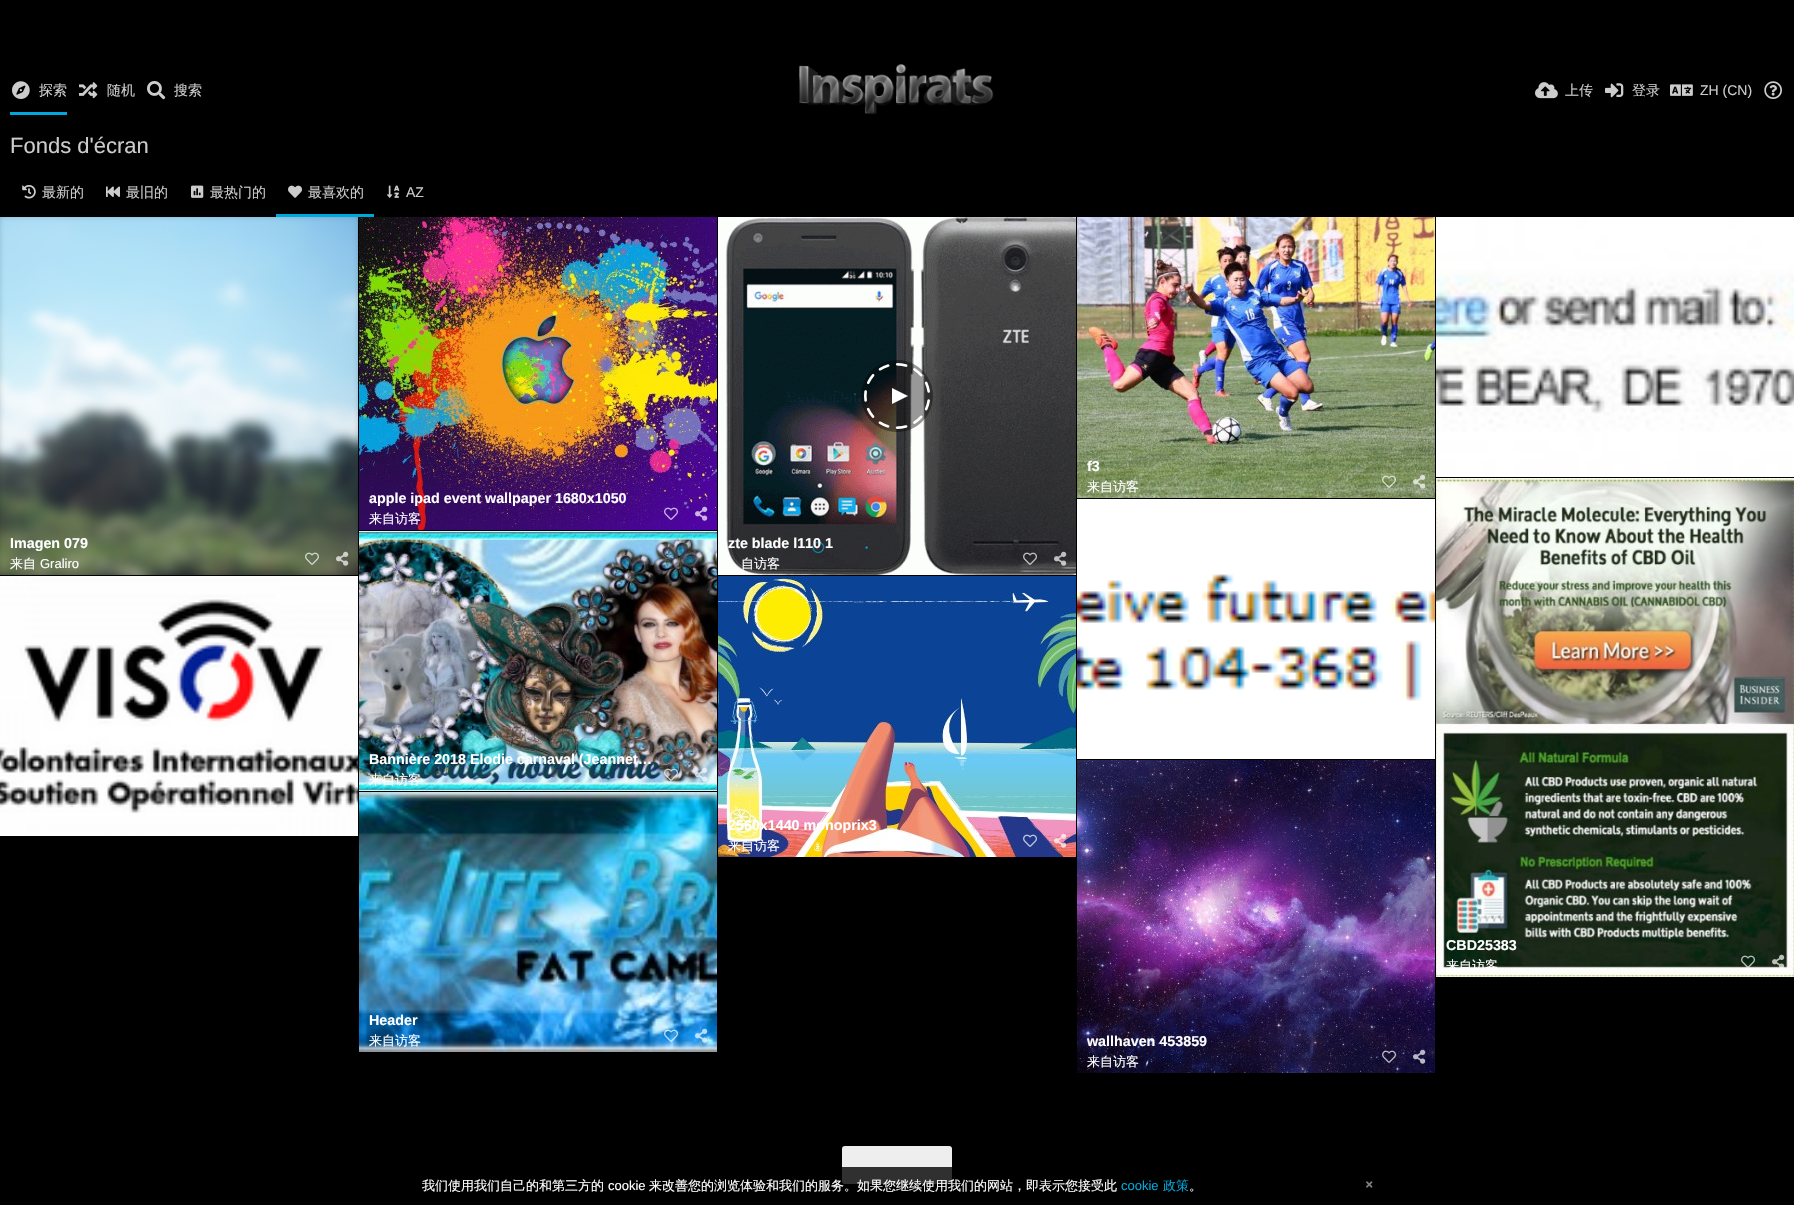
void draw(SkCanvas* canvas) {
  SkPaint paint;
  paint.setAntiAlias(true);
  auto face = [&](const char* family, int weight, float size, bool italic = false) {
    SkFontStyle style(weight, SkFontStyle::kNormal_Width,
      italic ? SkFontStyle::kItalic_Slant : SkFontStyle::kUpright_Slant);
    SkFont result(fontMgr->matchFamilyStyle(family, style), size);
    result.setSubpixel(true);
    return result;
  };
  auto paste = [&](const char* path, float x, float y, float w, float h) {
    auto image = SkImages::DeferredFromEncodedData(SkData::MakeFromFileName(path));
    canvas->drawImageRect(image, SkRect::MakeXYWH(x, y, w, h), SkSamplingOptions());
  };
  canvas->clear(0xff000000);
  paint.setColor(0xff00a7da);
  canvas->drawRect(SkRect::MakeXYWH(10, 112, 57, 3), paint);
  paste("img/1.png", 12, 81, 18, 18);
  paste("img/2.png", 79, 82, 19, 17);
  paste("img/3.png", 147, 81, 19, 19);
  paste("img/4.png", 799, 64, 195, 51);
  paste("img/5.png", 1535, 82, 23, 17);
  paste("img/6.png", 1605, 83, 19, 15);
  paste("img/7.png", 1670, 84, 23, 12);
  paste("img/8.png", 1764, 81, 18, 18);
  paste("img/9.png", 22, 185, 14, 14);
  paste("img/10.png", 106, 186, 14, 11);
  paste("img/11.png", 191, 185, 13, 13);
  canvas->drawRect(SkRect::MakeXYWH(276, 214, 98, 3), paint);
  paste("img/12.png", 288, 185, 14, 13);
  paste("img/13.png", 387, 185, 13, 13);
  paste("img/14.png", 1077, 217, 358, 281);
  paste("img/15.png", 1382, 475, 14, 13);
  paste("img/16.png", 1413, 474, 13, 15);
  paste("img/17.png", 1436, 217, 358, 260);
  paste("img/18.png", 0, 217, 358, 358);
  paste("img/19.png", 305, 552, 14, 13);
  paste("img/20.png", 336, 551, 13, 15);
  paste("img/21.png", 359, 217, 358, 313);
  paste("img/22.png", 664, 507, 14, 13);
  paste("img/23.png", 695, 506, 13, 15);
  paste("img/24.png", 718, 217, 358, 358);
  paste("img/25.png", 861, 360, 72, 72);
  paste("img/26.png", 864, 363, 66, 66);
  paste("img/27.png", 892, 388, 16, 16);
  paste("img/28.png", 1023, 552, 14, 13);
  paste("img/29.png", 1054, 551, 13, 15);
  paste("img/30.png", 1077, 499, 358, 260);
  paste("img/31.png", 0, 576, 358, 260);
  paste("img/32.png", 359, 531, 358, 260);
  paste("img/33.png", 664, 768, 14, 13);
  paste("img/34.png", 695, 767, 13, 15);
  paste("img/35.png", 718, 576, 358, 281);
  paste("img/36.png", 1023, 834, 14, 13);
  paste("img/37.png", 1054, 833, 13, 15);
  paste("img/38.png", 1436, 478, 358, 499);
  paste("img/39.png", 1741, 955, 14, 13);
  paste("img/40.png", 1772, 954, 13, 15);
  paste("img/41.png", 359, 792, 358, 260);
  paste("img/42.png", 664, 1029, 14, 13);
  paste("img/43.png", 695, 1028, 13, 15);
  paste("img/44.png", 1077, 760, 358, 313);
  paste("img/45.png", 1382, 1050, 14, 13);
  paste("img/46.png", 1413, 1049, 13, 15);
  paint.setColor(0xffeeeeee);
  canvas->drawRoundRect(SkRect::MakeXYWH(842, 1146, 110, 38), 3, 3, paint);
  paint.setColor(0xcc000000);
  canvas->drawRect(SkRect::MakeXYWH(842, 1167, 110, 17), paint);
  paste("img/47.png", 1366, 1181, 7, 7);
  auto f0 = face("WenQuanYi Zen Hei", 500, 14);
  paint.setColor(0xffcccccc);
  {
    const struct { const char* s; float x, y; } items[] = {
      {"探索", 39, 95},
      {"随机", 107, 95},
      {"搜索", 174, 95},
      {"上传", 1565, 95},
      {"登录", 1632, 95},
    };
    for (auto [s, x, y] : items) {
      canvas->drawString(s, x, y, f0, paint);
    }
  }
  auto f1 = face("Liberation Sans", 400, 14);
  canvas->drawString("ZH (CN)", 1700, 95, f1, paint);
  auto f2 = face("Liberation Sans", 400, 22);
  canvas->drawString("Fonds d'écran", 10, 153, f2, paint);
  {
    const struct { const char* s; float x, y; } items[] = {
      {"最新的", 42, 197},
      {"最旧的", 126, 197},
      {"最热门的", 210, 197},
      {"最喜欢的", 308, 197},
    };
    for (auto [s, x, y] : items) {
      canvas->drawString(s, x, y, f0, paint);
    }
  }
  canvas->drawString("AZ", 406, 197, f1, paint);
  auto f3 = face("Liberation Sans", 700, 14.3f);
  paint.setColor(0xffffffff);
  canvas->drawString("f3", 1087, 471, f3, paint);
  auto f4 = face("WenQuanYi Zen Hei", 500, 13);
  canvas->drawString("来自访客", 1087, 491, f4, paint);
  canvas->drawString("Imagen 079", 10, 548, f3, paint);
  canvas->drawString("来自", 10, 568, f4, paint);
  auto f5 = face("Liberation Sans", 400, 13);
  canvas->drawString("Graliro", 40, 568, f5, paint);
  canvas->drawString("apple ipad event wallpaper 1680x1050", 369, 503, f3, paint);
  canvas->drawString("来自访客", 369, 523, f4, paint);
  canvas->drawString("zte blade l110 1", 728, 548, f3, paint);
  canvas->drawString("自访客", 741, 568, f4, paint);
  canvas->drawString("Bannière 2018 Elodie carnaval (Jeannet…", 369, 764, f3, paint);
  canvas->drawString("来自访客", 369, 784, f4, paint);
  canvas->drawString("2560x1440 monoprix3", 728, 830, f3, paint);
  canvas->drawString("来自访客", 728, 850, f4, paint);
  canvas->drawString("CBD25383", 1446, 950, f3, paint);
  canvas->drawString("来自访客", 1446, 970, f4, paint);
  canvas->drawString("Header", 369, 1025, f3, paint);
  canvas->drawString("来自访客", 369, 1045, f4, paint);
  canvas->drawString("wallhaven 453859", 1087, 1046, f3, paint);
  canvas->drawString("来自访客", 1087, 1066, f4, paint);
  canvas->drawString("我们使用我们自己的和第三方的", 422, 1190, f4, paint);
  canvas->drawString("cookie", 608, 1190, f5, paint);
  canvas->drawString("来改善您的浏览体验和我们的服务。如果您继续使用我们的网站，即表示您接受此", 649, 1190, f4, paint);
  paint.setColor(0xff00a7da);
  canvas->drawString("cookie", 1121, 1190, f5, paint);
  canvas->drawString("政策", 1163, 1190, f4, paint);
  paint.setColor(0xffffffff);
  canvas->drawString("。", 1189, 1190, f4, paint);
}
